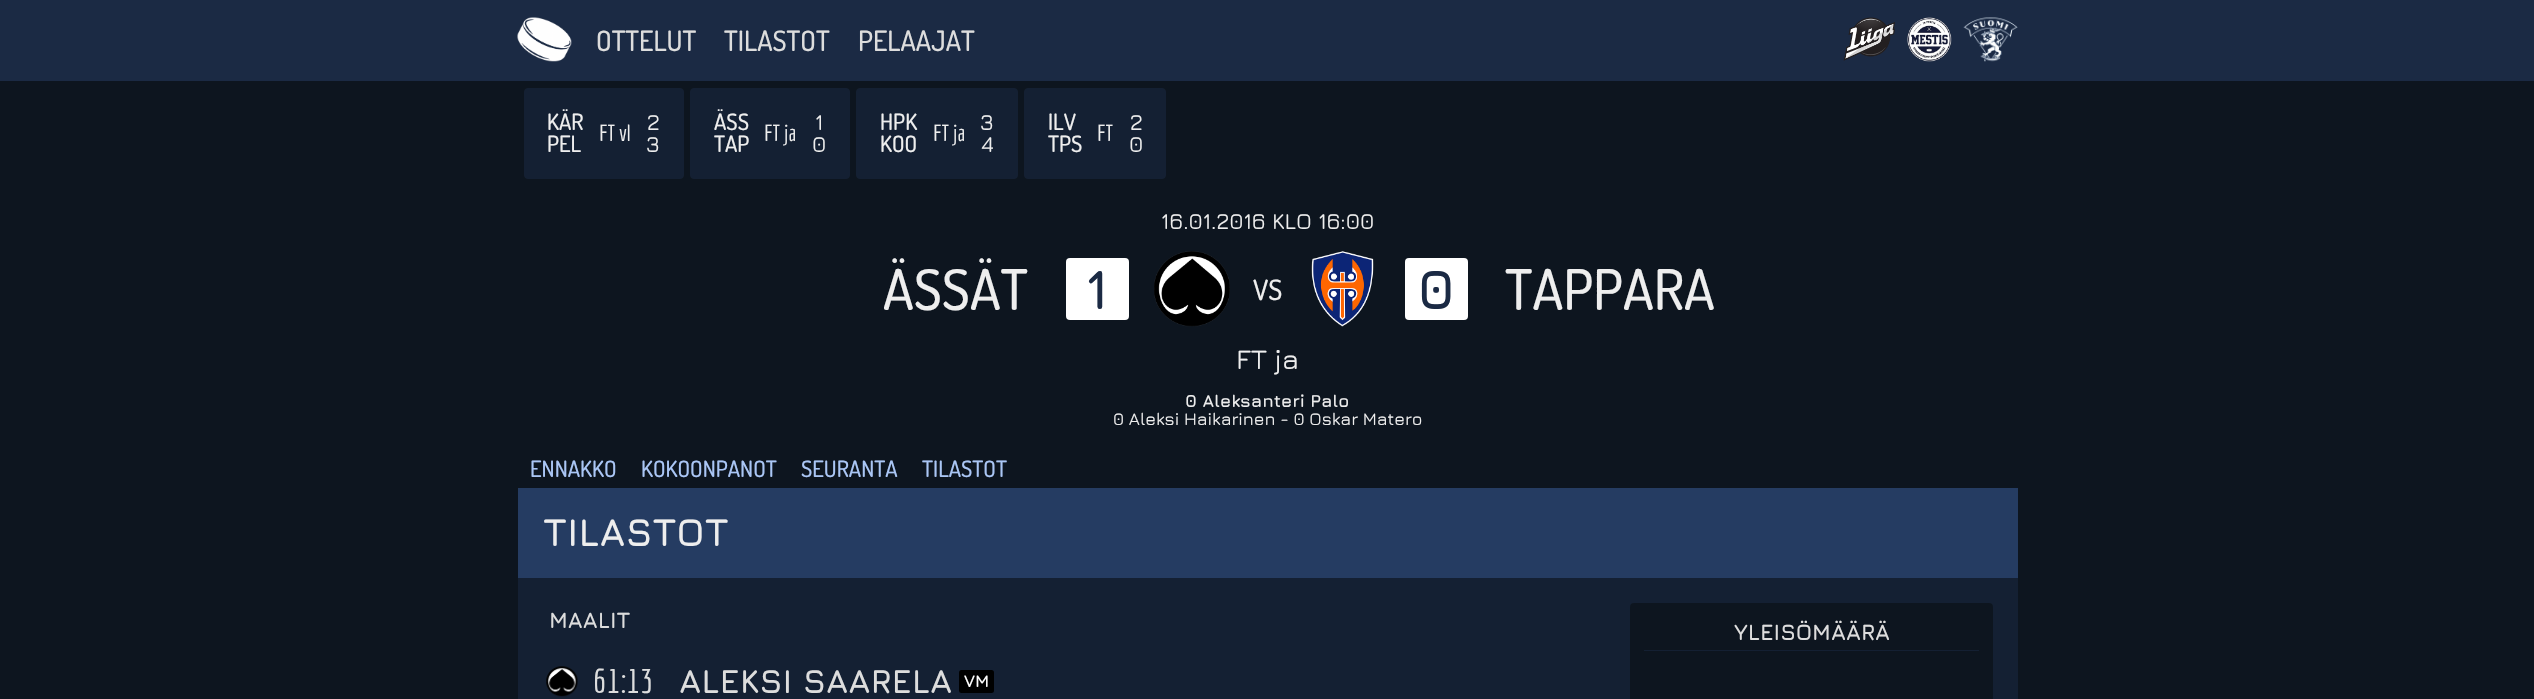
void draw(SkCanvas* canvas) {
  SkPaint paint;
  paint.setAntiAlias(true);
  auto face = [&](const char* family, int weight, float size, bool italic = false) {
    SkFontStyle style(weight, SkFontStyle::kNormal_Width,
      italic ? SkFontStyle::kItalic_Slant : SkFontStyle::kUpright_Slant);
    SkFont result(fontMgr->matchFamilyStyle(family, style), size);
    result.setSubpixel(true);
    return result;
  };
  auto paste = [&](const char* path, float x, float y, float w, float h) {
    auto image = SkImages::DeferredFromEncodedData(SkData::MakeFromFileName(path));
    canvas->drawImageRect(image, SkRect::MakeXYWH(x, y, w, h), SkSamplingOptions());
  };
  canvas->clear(0xff0d151f);
  paint.setColor(0xff1b2a44);
  canvas->drawRect(SkRect::MakeXYWH(0, 0, 2534, 81), paint);
  paste("img/1.png", 517, 17, 55, 45);
  paste("img/2.png", 1843, 17, 52, 44);
  paste("img/3.png", 1907, 17, 45, 45);
  paste("img/4.png", 1963, 17, 55, 45);
  paint.setColor(0xff142033);
  canvas->drawRect(SkRect::MakeXYWH(518, 578, 1500, 121), paint);
  canvas->drawRoundRect(SkRect::MakeXYWH(524.5f, 88.5f, 159, 90), 3.5f, 3.5f, paint);
  paint.setStroke(true);
  paint.setStrokeWidth(1);
  canvas->drawRoundRect(SkRect::MakeXYWH(524.5f, 88.5f, 159, 90), 3.5f, 3.5f, paint);
  paint.setStroke(false);
  canvas->drawRoundRect(SkRect::MakeXYWH(690.5f, 88.5f, 159, 90), 3.5f, 3.5f, paint);
  paint.setStroke(true);
  canvas->drawRoundRect(SkRect::MakeXYWH(690.5f, 88.5f, 159, 90), 3.5f, 3.5f, paint);
  paint.setStroke(false);
  canvas->drawRoundRect(SkRect::MakeXYWH(856.5f, 88.5f, 161, 90), 3.5f, 3.5f, paint);
  paint.setStroke(true);
  canvas->drawRoundRect(SkRect::MakeXYWH(856.5f, 88.5f, 161, 90), 3.5f, 3.5f, paint);
  paint.setStroke(false);
  canvas->drawRoundRect(SkRect::MakeXYWH(1024.5f, 88.5f, 141, 90), 3.5f, 3.5f, paint);
  paint.setStroke(true);
  canvas->drawRoundRect(SkRect::MakeXYWH(1024.5f, 88.5f, 141, 90), 3.5f, 3.5f, paint);
  paint.setStroke(false);
  paint.setColor(0xffffffff);
  canvas->drawRoundRect(SkRect::MakeXYWH(1066, 258, 63, 62), 4, 4, paint);
  paste("img/5.png", 1154, 251, 76, 76);
  paste("img/6.png", 1311, 251, 63, 76);
  canvas->drawRoundRect(SkRect::MakeXYWH(1405, 258, 63, 62), 4, 4, paint);
  paint.setColor(0xff253c62);
  canvas->drawRect(SkRect::MakeXYWH(518, 488, 1500, 90), paint);
  paste("img/7.png", 546, 666, 32, 31);
  paint.setColor(0xff000000);
  canvas->drawRoundRect(SkRect::MakeXYWH(959, 670, 35, 23), 2.5f, 2.5f, paint);
  paint.setColor(0xff0d151f);
  canvas->drawRoundRect(SkRect::MakeXYWH(1630, 603, 363, 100), 4, 4, paint);
  paint.setColor(0xff142033);
  canvas->drawRect(SkRect::MakeXYWH(1644, 650, 335, 1), paint);
  auto f0 = face("Dosis", 500, 28);
  paint.setColor(0xffdddddd);
  {
    const struct { const char* s; float x, y; } items[] = {
      {"OTTELUT", 596, 51},
      {"TILASTOT", 724, 51},
      {"PELAAJAT", 858, 51},
    };
    for (auto [s, x, y] : items) {
      canvas->drawString(s, x, y, f0, paint);
    }
  }
  auto f1 = face("Dosis", 500, 22.5f);
  paint.setColor(0xffeeeeee);
  canvas->drawString("KÄR", 547, 130, f1, paint);
  canvas->drawString("PEL", 547, 152, f1, paint);
  auto f2 = face("Economica", 400, 22.5f);
  canvas->drawString("FT vl", 599, 141, f2, paint);
  auto f3 = face("Jura", 500, 22.5f);
  canvas->drawString("2", 647, 130, f3, paint);
  canvas->drawString("3", 646, 152, f3, paint);
  canvas->drawString("ÄSS", 714, 130, f1, paint);
  canvas->drawString("TAP", 714, 152, f1, paint);
  canvas->drawString("FT ja", 764, 141, f2, paint);
  canvas->drawString("1", 815, 130, f3, paint);
  canvas->drawString("0", 812, 152, f3, paint);
  canvas->drawString("HPK", 880, 130, f1, paint);
  canvas->drawString("KOO", 880, 152, f1, paint);
  canvas->drawString("FT ja", 933, 141, f2, paint);
  canvas->drawString("3", 980, 130, f3, paint);
  canvas->drawString("4", 981, 152, f3, paint);
  canvas->drawString("ILV", 1048, 130, f1, paint);
  canvas->drawString("TPS", 1048, 152, f1, paint);
  canvas->drawString("FT", 1097, 141, f2, paint);
  {
    const struct { const char* s; float x, y; } items[] = {
      {"2", 1130, 130},
      {"0", 1129, 152},
      {"16.01.2016 KLO 16:00", 1161, 229},
    };
    for (auto [s, x, y] : items) {
      canvas->drawString(s, x, y, f3, paint);
    }
  }
  auto f4 = face("Dosis", 500, 56);
  canvas->drawString("ÄSSÄT", 883, 310, f4, paint);
  auto f5 = face("Jura", 700, 56);
  paint.setColor(0xff1b2a44);
  canvas->drawString("1", 1086, 309, f5, paint);
  paint.setColor(0xffeeeeee);
  canvas->drawString("VS", 1253, 300, f0, paint);
  paint.setColor(0xff1b2a44);
  canvas->drawString("0", 1417, 309, f5, paint);
  paint.setColor(0xffeeeeee);
  canvas->drawString("TAPPARA", 1505, 310, f4, paint);
  auto f6 = face("Jura", 500, 28);
  canvas->drawString("FT ja", 1236, 369, f6, paint);
  auto f7 = face("Jura", 700, 17.5f);
  canvas->drawString("0 Aleksanteri Palo", 1185, 407, f7, paint);
  auto f8 = face("Jura", 500, 17.5f);
  canvas->drawString("0 Aleksi Haikarinen - 0 Oskar Matero", 1113, 425, f8, paint);
  paint.setColor(0xffaac6f5);
  {
    const struct { const char* s; float x, y; } items[] = {
      {"ENNAKKO", 530, 477},
      {"KOKOONPANOT", 641, 477},
      {"SEURANTA", 801, 477},
      {"TILASTOT", 922, 477},
    };
    for (auto [s, x, y] : items) {
      canvas->drawString(s, x, y, f1, paint);
    }
  }
  auto f9 = face("Jura", 700, 39);
  paint.setColor(0xffeeeeee);
  canvas->drawString("TILASTOT", 543, 546, f9, paint);
  auto f10 = face("Jura", 700, 22.5f);
  paint.setColor(0xffdddddd);
  canvas->drawString("MAALIT", 549, 628, f10, paint);
  auto f11 = face("Economica", 400, 33.5f);
  canvas->drawString("61:13", 593, 693, f11, paint);
  auto f12 = face("Jura", 700, 33.5f);
  canvas->drawString("ALEKSI SAARELA", 679, 693, f12, paint);
  auto f13 = face("Jura", 700, 17);
  paint.setColor(0xffffffff);
  canvas->drawString("VM", 964, 687, f13, paint);
  paint.setColor(0xffdddddd);
  canvas->drawString("YLEISÖMÄÄRÄ", 1734, 640, f10, paint);
}
